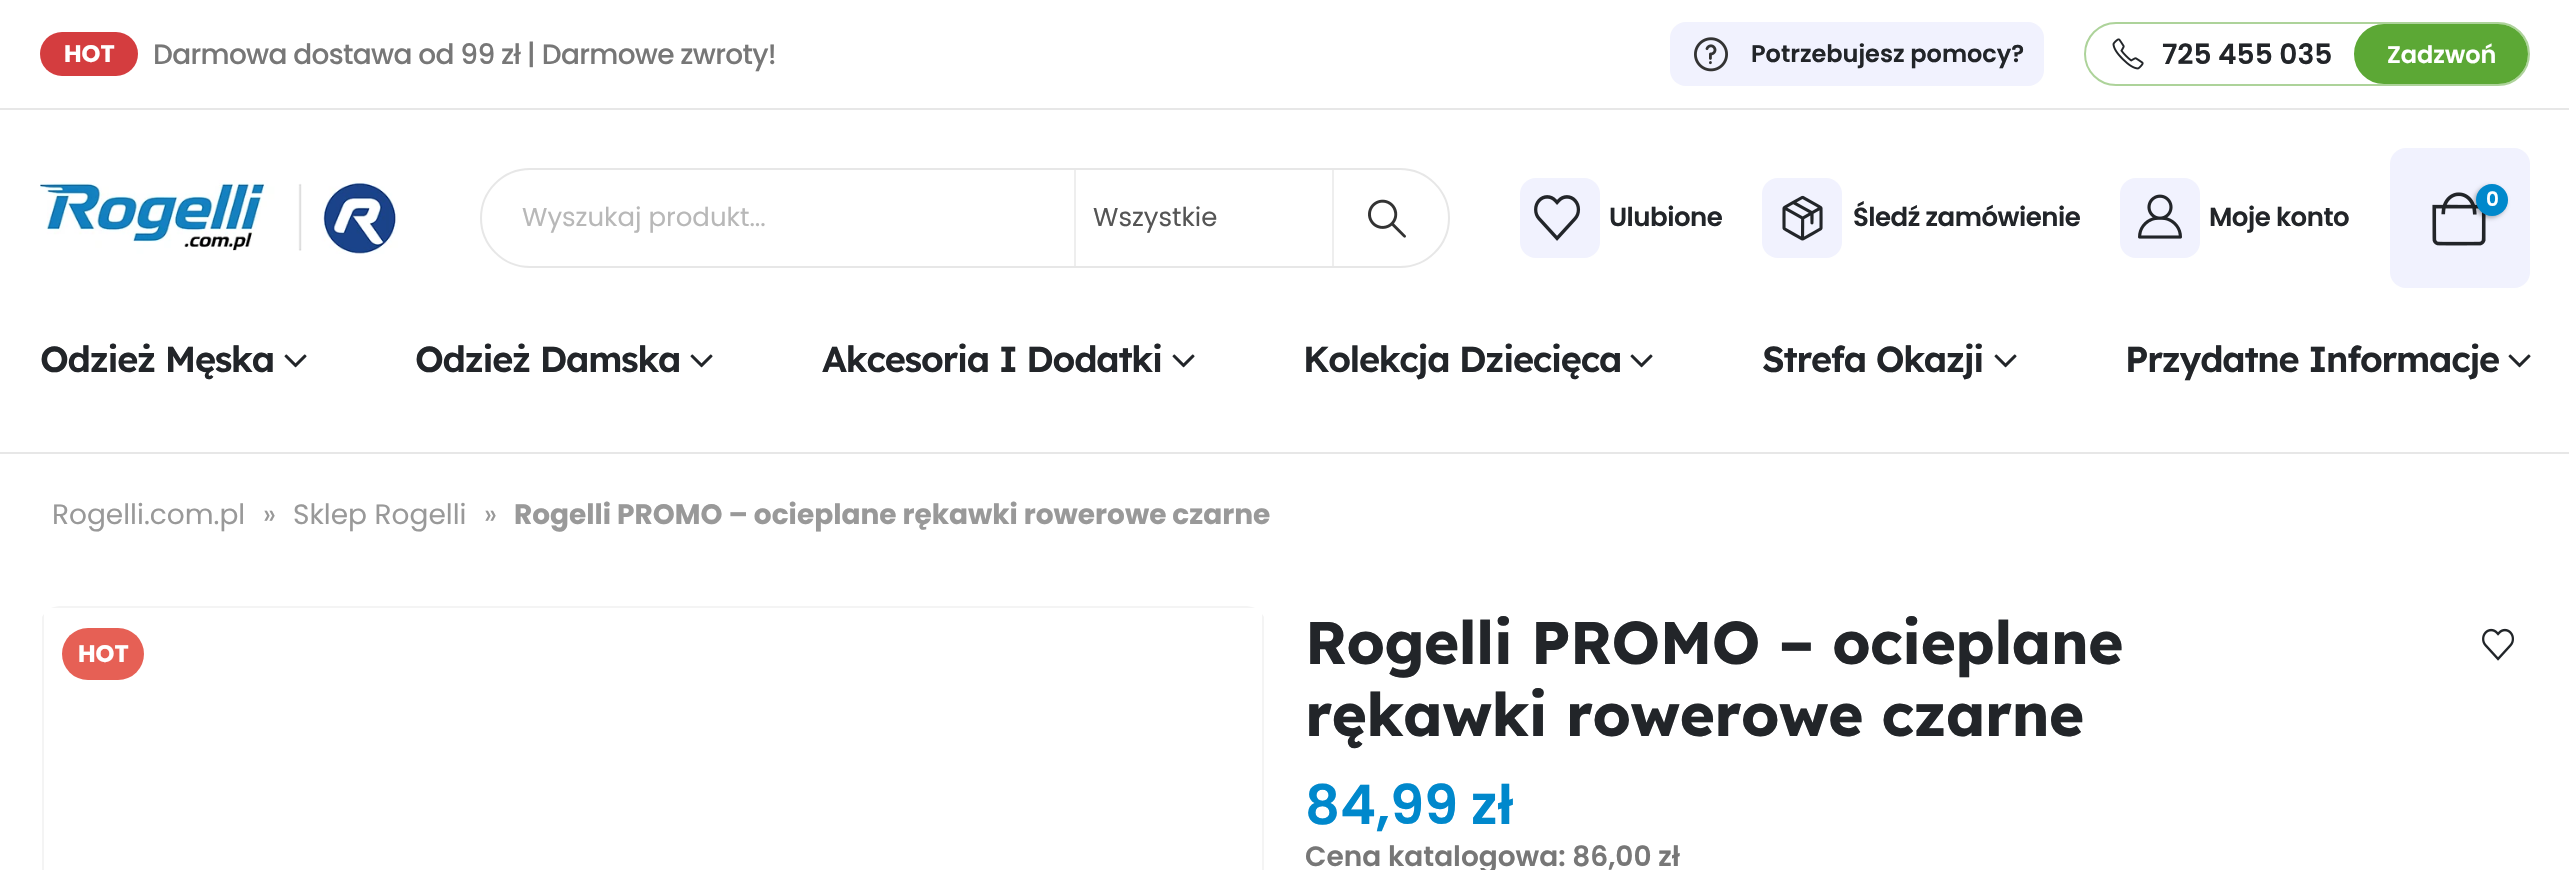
void draw(SkCanvas* canvas) {
  SkPaint paint;
  paint.setAntiAlias(true);
  auto face = [&](const char* family, int weight, float size, bool italic = false) {
    SkFontStyle style(weight, SkFontStyle::kNormal_Width,
      italic ? SkFontStyle::kItalic_Slant : SkFontStyle::kUpright_Slant);
    SkFont result(fontMgr->matchFamilyStyle(family, style), size);
    result.setSubpixel(true);
    return result;
  };
  auto writeSpaced = [&](const char* s, float x, float y, const SkFont& font, const SkPaint& ink, float letter, float word) {
    std::vector<SkGlyphID> glyphs(font.countText(s, strlen(s), SkTextEncoding::kUTF8));
    std::vector<float> xs(glyphs.size());
    font.textToGlyphs(s, strlen(s), SkTextEncoding::kUTF8, glyphs);
    font.getXPos(glyphs, xs, x);
    float extra = 0;
    for (size_t i = 0; i < glyphs.size(); i++) {
      xs[i] += extra;
      extra += letter + word * (glyphs[i] == font.unicharToGlyph(' '));
    }
    canvas->drawTextBlob(SkTextBlob::MakeFromPosHGlyphs(glyphs, xs, y, font), 0, 0, ink);
  };
  auto paste = [&](const char* path, float x, float y, float w, float h) {
    auto image = SkImages::DeferredFromEncodedData(SkData::MakeFromFileName(path));
    canvas->drawImageRect(image, SkRect::MakeXYWH(x, y, w, h), SkSamplingOptions());
  };
  auto shape = [&](const char* data, bool evenOdd = false) {
    SkPath result = *SkParsePath::FromSVGString(data);
    if (evenOdd) result.setFillType(SkPathFillType::kEvenOdd);
    return result;
  };
  canvas->clear(0xffffffff);
  paint.setColor(0xffe7e7e7);
  canvas->drawRect(SkRect::MakeXYWH(0, 108, 2569, 2), paint);
  paint.setColor(0xffd43d3f);
  canvas->drawRoundRect(SkRect::MakeXYWH(40, 32, 98, 44), 22, 22, paint);
  paint.setColor(0xfff1f2fe);
  canvas->drawRoundRect(SkRect::MakeXYWH(1670, 22, 374, 64), 16, 16, paint);
  paste("img/1.png", 1694, 37, 34, 35);
  paint.setStroke(true);
  paint.setStrokeWidth(2);
  paint.setColor(0xffadd39a);
  canvas->drawRoundRect(SkRect::MakeXYWH(2085, 23, 444, 62), 31, 31, paint);
  paste("img/2.png", 2112, 38, 32, 32);
  paint.setStroke(false);
  paint.setColor(0xff5ca835);
  canvas->drawRoundRect(SkRect::MakeXYWH(2355, 25, 172, 58), 29, 29, paint);
  paint.setStroke(true);
  canvas->drawRoundRect(SkRect::MakeXYWH(2355, 25, 172, 58), 29, 29, paint);
  paste("img/3.png", 40, 180, 358, 74);
  paint.setStroke(false);
  paint.setColor(0xfff1f2fe);
  canvas->drawRoundRect(SkRect::MakeXYWH(2390, 148, 140, 140), 16, 16, paint);
  paste("img/4.png", 2432, 192, 54, 54);
  paint.setColor(0x4d000000);
  paint.setMaskFilter(SkMaskFilter::MakeBlur(kNormal_SkBlurStyle, 2));
  canvas->drawRoundRect(SkRect::MakeXYWH(2474, 186, 32, 32), 16, 16, paint);
  paint.setMaskFilter(nullptr);
  paint.setColor(0xff0088cc);
  canvas->drawCircle(2492, 200, 16, paint);
  paint.setStroke(true);
  paint.setColor(0xffe7e7e7);
  canvas->drawRoundRect(SkRect::MakeXYWH(481, 169, 968, 98), 49, 49, paint);
  paint.setStroke(false);
  paint.setColor(0xffeeeeee);
  canvas->drawRect(SkRect::MakeXYWH(1332, 170, 2, 96), paint);
  canvas->drawRect(SkRect::MakeXYWH(1074, 170, 2, 96), paint);
  paste("img/5.png", 1368, 199, 38, 39);
  paint.setColor(0xfff1f2fe);
  canvas->drawRoundRect(SkRect::MakeXYWH(1520, 178, 80, 80), 16, 16, paint);
  paste("img/6.png", 1534, 195, 47, 46);
  canvas->drawRoundRect(SkRect::MakeXYWH(1762, 178, 80, 80), 16, 16, paint);
  paste("img/7.png", 1782, 195, 41, 46);
  canvas->drawRoundRect(SkRect::MakeXYWH(2120, 178, 80, 80), 16, 16, paint);
  paste("img/8.png", 2138, 194, 44, 45);
  paste("img/9.png", 284, 354, 23, 14);
  paste("img/9.png", 690, 354, 23, 14);
  paste("img/9.png", 1172, 354, 23, 14);
  paste("img/9.png", 1630, 354, 23, 14);
  paste("img/9.png", 1994, 354, 23, 14);
  paste("img/9.png", 2508, 354, 23, 14);
  paint.setColor(0xffe7e7e7);
  canvas->drawRect(SkRect::MakeXYWH(0, 452, 2569, 2), paint);
  paint.setColor(0xfff4f4f4);
  canvas->drawPath(shape("M60 606C57 606 54 607 51 608H1255C1252 607 1249 606 1246 606ZM1262 614V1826H44V614L42 617V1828H1264V617Z", true), paint);
  paint.setColor(0xffe66055);
  canvas->drawRoundRect(SkRect::MakeXYWH(62, 628, 82, 52), 26, 26, paint);
  paste("img/10.png", 2482, 628, 32, 33);
  auto f0 = face("Poppins", 700, 24);
  paint.setColor(0xffffffff);
  canvas->drawString("HOT", 64, 62, f0, paint);
  auto f1 = face("Poppins", 500, 28);
  paint.setColor(0xff777777);
  writeSpaced("Darmowa dostawa od 99 zł | Darmowe zwroty!", 153, 64, f1, paint, -0.7f, 0);
  auto f2 = face("Poppins", 600, 24);
  paint.setColor(0xff222529);
  canvas->drawString("Potrzebujesz pomocy?", 1751, 62, f2, paint);
  auto f3 = face("Poppins", 600, 28);
  canvas->drawString("725 455 035", 2162, 64, f3, paint);
  paint.setColor(0xffffffff);
  canvas->drawString("Zadzwoń", 2387, 63, f2, paint);
  auto f4 = face("Poppins", 600, 20);
  canvas->drawString("0", 2486, 206, f4, paint);
  auto f5 = face("Poppins", 400, 26);
  paint.setColor(0xffb8b8b8);
  canvas->drawString("Wyszukaj produkt...", 522, 226, f5, paint);
  paint.setColor(0xff555555);
  canvas->drawString("Wszystkie", 1093, 226, f5, paint);
  auto f6 = face("Poppins", 600, 26);
  paint.setColor(0xff222529);
  {
    const struct { const char* s; float x, y; } items[] = {
      {"Ulubione", 1609, 226},
      {"Śledź zamówienie", 1853, 226},
      {"Moje konto", 2209, 226},
    };
    for (auto [s, x, y] : items) {
      writeSpaced(s, x, y, f6, paint, -0.5f, 0);
    }
  }
  auto f7 = face("Lexend", 600, 36);
  {
    const struct { const char* s; float x, y; } items[] = {
      {"Odzież Męska", 40, 372},
      {"Odzież Damska", 415, 372},
      {"Akcesoria I Dodatki", 822, 372},
      {"Kolekcja Dziecięca", 1303, 372},
      {"Strefa Okazji", 1762, 372},
      {"Przydatne Informacje", 2125, 372},
    };
    for (auto [s, x, y] : items) {
      writeSpaced(s, x, y, f7, paint, -1.25f, 0);
    }
  }
  auto f8 = face("Poppins", 400, 28);
  paint.setColor(0xff999999);
  {
    const struct { const char* s; float x, y; } items[] = {
      {"Rogelli.com.pl", 52, 524},
      {"»", 263, 524},
      {"Sklep Rogelli", 293, 524},
      {"»", 484, 524},
    };
    for (auto [s, x, y] : items) {
      canvas->drawString(s, x, y, f8, paint);
    }
  }
  auto f9 = face("Poppins", 700, 28);
  canvas->drawString("Rogelli PROMO – ocieplane rękawki rowerowe czarne", 514, 524, f9, paint);
  paint.setColor(0xffffffff);
  canvas->drawString("HOT", 78, 662, f0, paint);
  auto f10 = face("Lexend", 700, 60);
  paint.setColor(0xff222529);
  writeSpaced("Rogelli PROMO – ocieplane", 1305, 664, f10, paint, -0.6f, 0);
  writeSpaced("rękawki rowerowe czarne", 1305, 736, f10, paint, -0.6f, 0);
  auto f11 = face("Poppins", 600, 54.5f);
  paint.setColor(0xff0088cc);
  canvas->drawString("84,99 zł", 1305, 824, f11, paint);
  paint.setColor(0xff777777);
  canvas->drawString("Cena katalogowa: 86,00 zł", 1305, 866, f3, paint);
}
